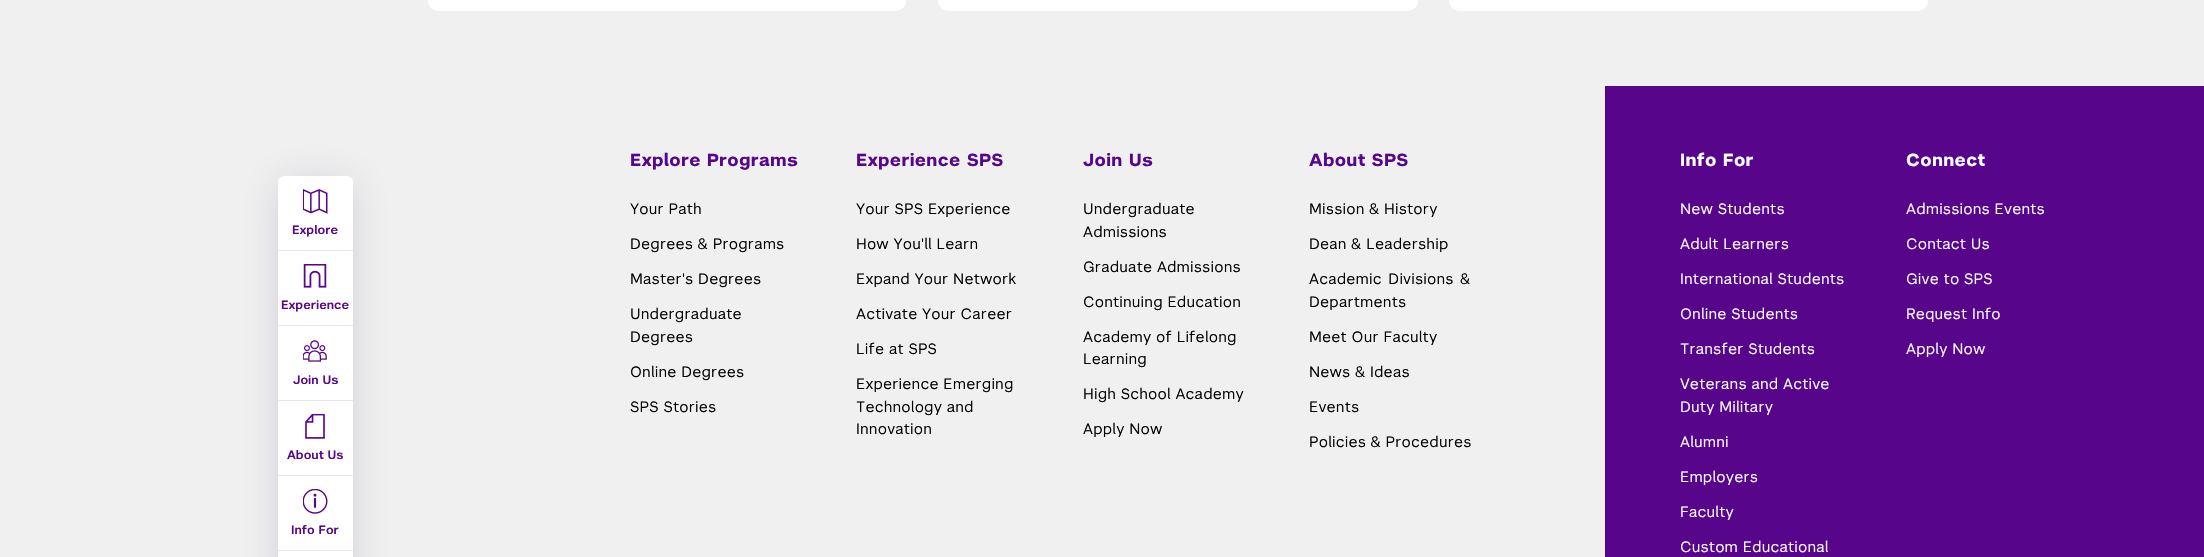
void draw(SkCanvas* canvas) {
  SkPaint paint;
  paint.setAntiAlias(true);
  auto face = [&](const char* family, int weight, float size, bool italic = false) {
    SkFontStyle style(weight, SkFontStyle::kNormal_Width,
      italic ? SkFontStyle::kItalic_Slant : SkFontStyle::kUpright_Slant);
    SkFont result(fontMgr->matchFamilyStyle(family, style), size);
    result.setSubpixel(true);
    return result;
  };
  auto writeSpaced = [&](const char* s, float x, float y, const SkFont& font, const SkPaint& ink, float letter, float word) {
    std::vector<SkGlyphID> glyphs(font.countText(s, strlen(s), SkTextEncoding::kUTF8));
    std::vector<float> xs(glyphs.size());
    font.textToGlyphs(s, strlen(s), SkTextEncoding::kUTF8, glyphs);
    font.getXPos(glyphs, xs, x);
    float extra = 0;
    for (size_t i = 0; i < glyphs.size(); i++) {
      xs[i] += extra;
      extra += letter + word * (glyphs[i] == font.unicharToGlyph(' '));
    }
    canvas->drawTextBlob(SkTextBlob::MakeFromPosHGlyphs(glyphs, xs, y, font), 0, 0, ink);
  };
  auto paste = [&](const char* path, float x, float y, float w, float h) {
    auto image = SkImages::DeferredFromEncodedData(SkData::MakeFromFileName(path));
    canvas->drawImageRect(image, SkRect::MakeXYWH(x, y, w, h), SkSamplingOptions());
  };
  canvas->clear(0xfff0f0f0);
  paint.setColor(0xffffffff);
  canvas->drawRoundRect(SkRect::MakeXYWH(428, -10, 478, 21), 10, 10, paint);
  canvas->drawRoundRect(SkRect::MakeXYWH(938, -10, 480, 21), 10, 10, paint);
  canvas->drawRoundRect(SkRect::MakeXYWH(1449, -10, 479, 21), 10, 10, paint);
  paint.setColor(0x26270648);
  paint.setMaskFilter(SkMaskFilter::MakeBlur(kNormal_SkBlurStyle, 19));
  canvas->drawRoundRect(SkRect::MakeXYWH(278, 181, 75, 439), 6, 6, paint);
  paint.setMaskFilter(nullptr);
  paint.setColor(0xffffffff);
  canvas->drawRoundRect(SkRect::MakeXYWH(278, 176, 75, 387), 6, 6, paint);
  paint.setColor(0xffeae3f0);
  canvas->drawRect(SkRect::MakeXYWH(278, 250, 75, 1), paint);
  paste("img/1.png", 303, 189, 25, 25);
  canvas->drawRect(SkRect::MakeXYWH(278, 325, 75, 1), paint);
  paste("img/2.png", 303, 264, 24, 24);
  canvas->drawRect(SkRect::MakeXYWH(278, 400, 75, 1), paint);
  paste("img/3.png", 303, 340, 24, 22);
  canvas->drawRect(SkRect::MakeXYWH(278, 475, 75, 1), paint);
  paste("img/4.png", 305, 414, 20, 25);
  canvas->drawRect(SkRect::MakeXYWH(278, 550, 75, 1), paint);
  paste("img/5.png", 303, 489, 25, 25);
  paint.setColor(0xff57068c);
  canvas->drawRect(SkRect::MakeXYWH(1605, 86, 599, 471), paint);
  auto f0 = face("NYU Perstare", 500, 12);
  {
    const struct { const char* s; float x, y; } items[] = {
      {"Explore", 292, 234},
      {"Experience", 281, 309},
      {"Join Us", 293, 384},
      {"About Us", 287, 459},
      {"Info For", 291, 534},
    };
    for (auto [s, x, y] : items) {
      canvas->drawString(s, x, y, f0, paint);
    }
  }
  auto f1 = face("NYU Perstare", 700, 17.5f);
  writeSpaced("Explore Programs", 630, 166, f1, paint, 0.3f, 0);
  auto f2 = face("NYU Perstare", 400, 15);
  paint.setColor(0xff000000);
  {
    const struct { const char* s; float x, y; } items[] = {
      {"Your Path", 630, 214},
      {"Degrees & Programs", 630, 249},
      {"Master's Degrees", 630, 284},
      {"Undergraduate", 630, 319},
      {"Degrees", 630, 342},
      {"Online Degrees", 630, 377},
      {"SPS Stories", 630, 412},
    };
    for (auto [s, x, y] : items) {
      writeSpaced(s, x, y, f2, paint, 0.15f, 0);
    }
  }
  paint.setColor(0xff57068c);
  writeSpaced("Experience SPS", 856, 166, f1, paint, 0.3f, 0);
  paint.setColor(0xff000000);
  {
    const struct { const char* s; float x, y; } items[] = {
      {"Your SPS Experience", 856, 214},
      {"How You'll Learn", 856, 249},
      {"Expand Your Network", 856, 284},
      {"Activate Your Career", 856, 319},
      {"Life at SPS", 856, 354},
      {"Experience Emerging", 856, 389},
      {"Technology and", 856, 412},
      {"Innovation", 856, 434},
    };
    for (auto [s, x, y] : items) {
      writeSpaced(s, x, y, f2, paint, 0.15f, 0);
    }
  }
  paint.setColor(0xff57068c);
  writeSpaced("Join Us", 1083, 166, f1, paint, 0.3f, 0);
  paint.setColor(0xff000000);
  {
    const struct { const char* s; float x, y; } items[] = {
      {"Undergraduate", 1083, 214},
      {"Admissions", 1083, 237},
      {"Graduate Admissions", 1083, 272},
      {"Continuing Education", 1083, 307},
      {"Academy of Lifelong", 1083, 342},
      {"Learning", 1083, 364},
      {"High School Academy", 1083, 399},
      {"Apply Now", 1083, 434},
    };
    for (auto [s, x, y] : items) {
      writeSpaced(s, x, y, f2, paint, 0.15f, 0);
    }
  }
  paint.setColor(0xff57068c);
  writeSpaced("About SPS", 1309, 166, f1, paint, 0.3f, 0);
  paint.setColor(0xff000000);
  writeSpaced("Mission & History", 1309, 214, f2, paint, 0.15f, 0);
  writeSpaced("Dean & Leadership", 1309, 249, f2, paint, 0.15f, 0);
  writeSpaced("Academic Divisions &", 1309, 284, f2, paint, 0.15f, 2);
  {
    const struct { const char* s; float x, y; } items[] = {
      {"Departments", 1309, 307},
      {"Meet Our Faculty", 1309, 342},
      {"News & Ideas", 1309, 377},
      {"Events", 1309, 412},
      {"Policies & Procedures", 1309, 447},
    };
    for (auto [s, x, y] : items) {
      writeSpaced(s, x, y, f2, paint, 0.15f, 0);
    }
  }
  paint.setColor(0xffffffff);
  writeSpaced("Info For", 1680, 166, f1, paint, 0.3f, 0);
  {
    const struct { const char* s; float x, y; } items[] = {
      {"New Students", 1680, 214},
      {"Adult Learners", 1680, 249},
      {"International Students", 1680, 284},
      {"Online Students", 1680, 319},
      {"Transfer Students", 1680, 354},
      {"Veterans and Active", 1680, 389},
      {"Duty Military", 1680, 412},
      {"Alumni", 1680, 447},
      {"Employers", 1680, 482},
      {"Faculty", 1680, 517},
      {"Custom Educational", 1680, 552},
    };
    for (auto [s, x, y] : items) {
      writeSpaced(s, x, y, f2, paint, 0.15f, 0);
    }
  }
  writeSpaced("Connect", 1906, 166, f1, paint, 0.3f, 0);
  {
    const struct { const char* s; float x, y; } items[] = {
      {"Admissions Events", 1906, 214},
      {"Contact Us", 1906, 249},
      {"Give to SPS", 1906, 284},
      {"Request Info", 1906, 319},
      {"Apply Now", 1906, 354},
    };
    for (auto [s, x, y] : items) {
      writeSpaced(s, x, y, f2, paint, 0.15f, 0);
    }
  }
}
